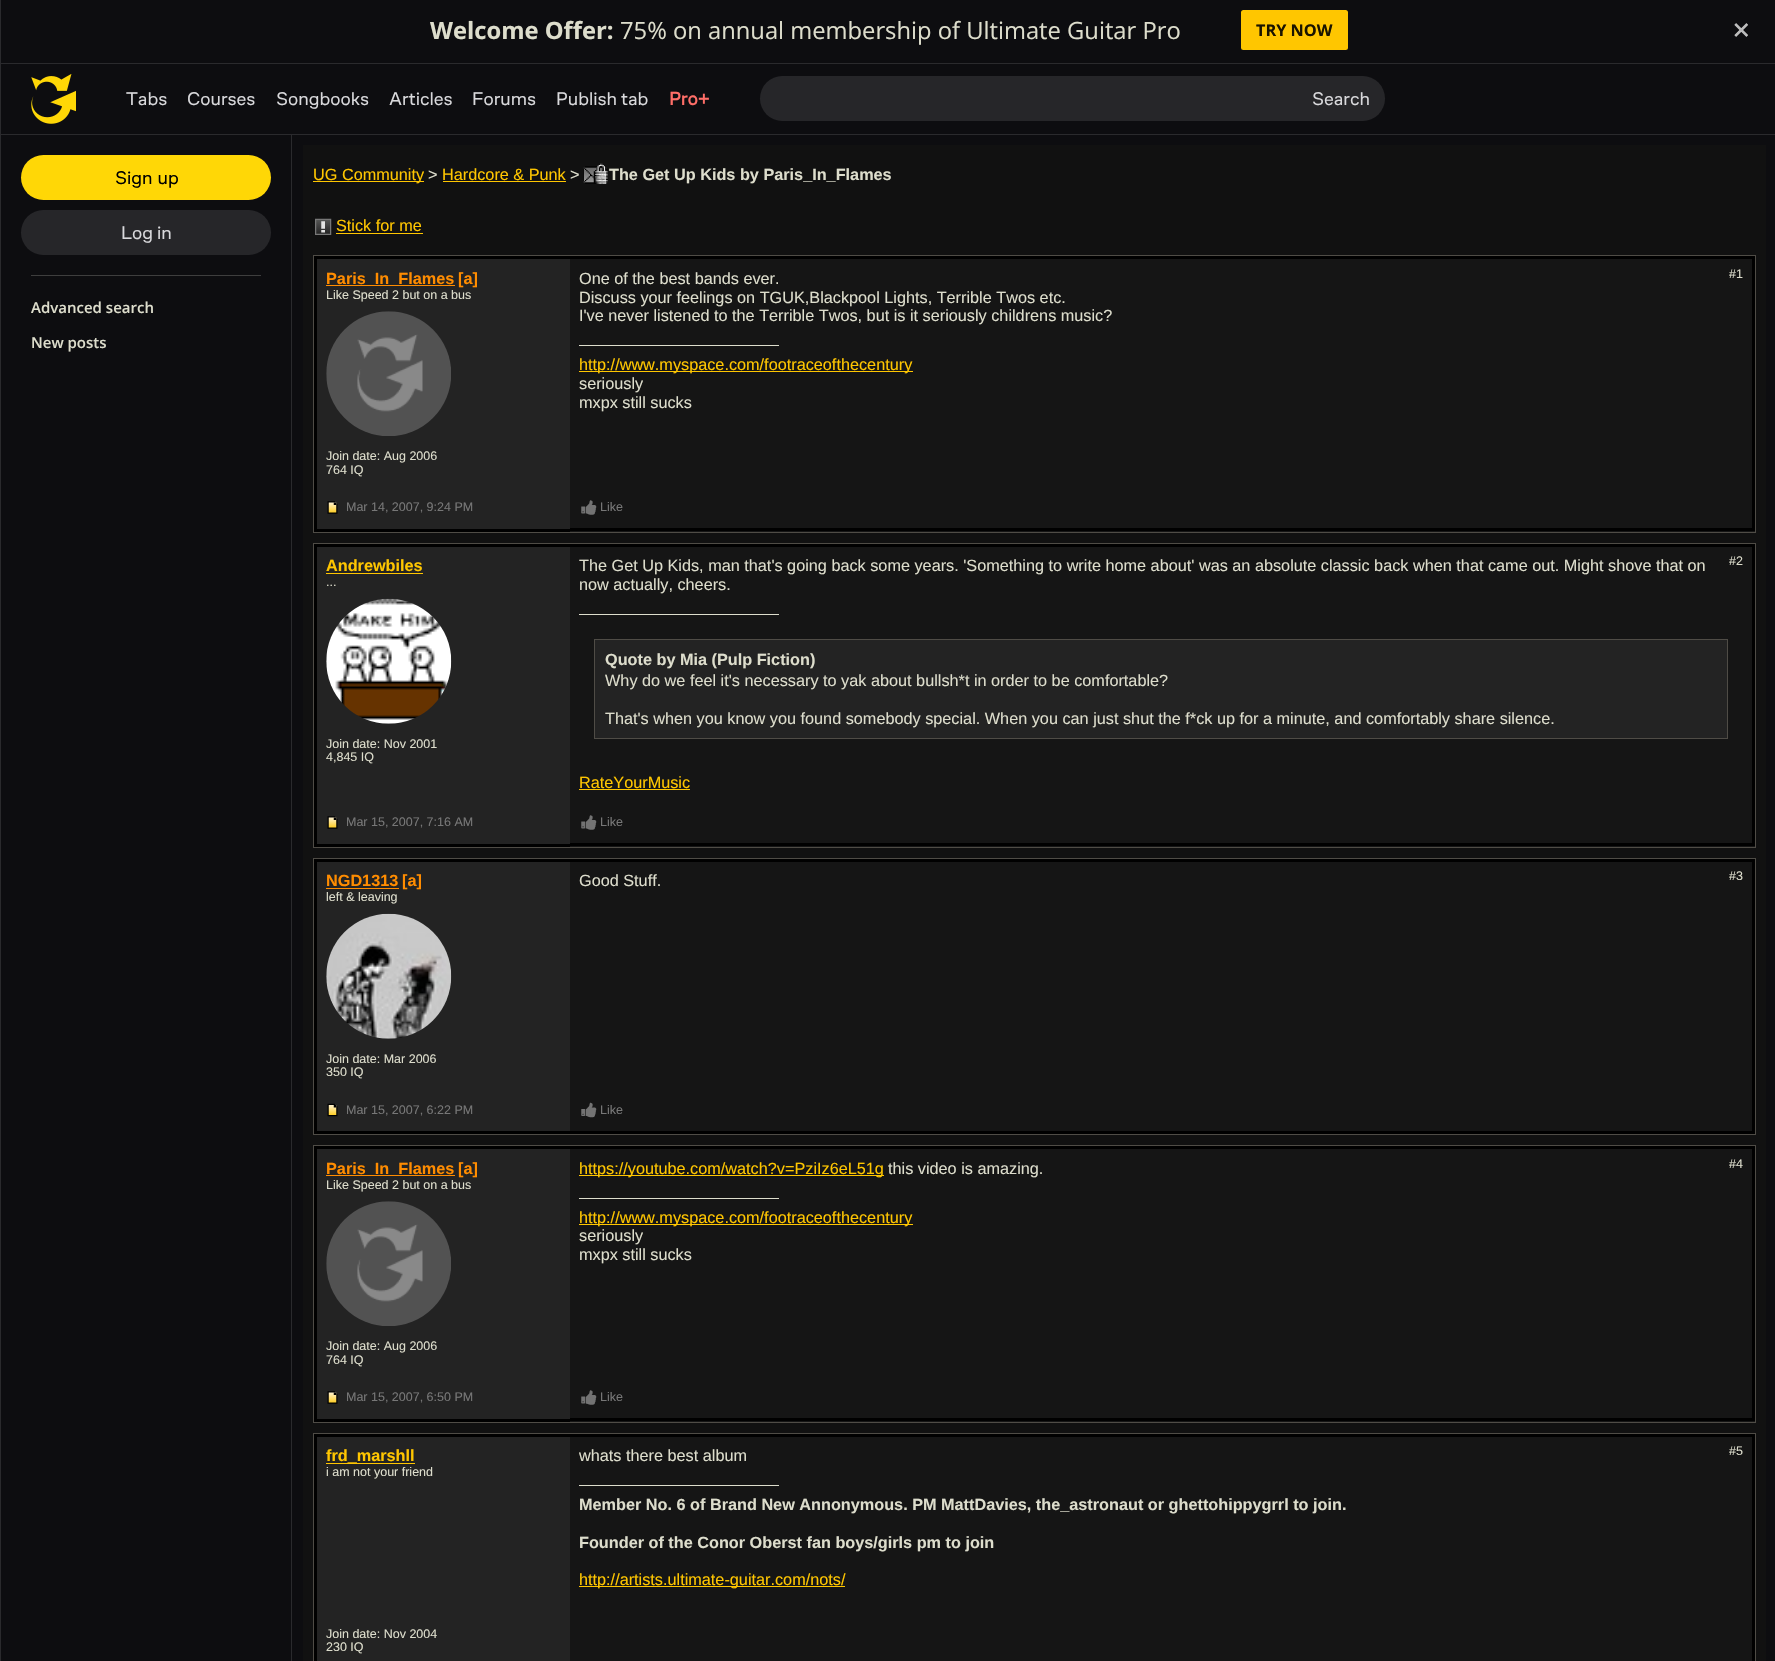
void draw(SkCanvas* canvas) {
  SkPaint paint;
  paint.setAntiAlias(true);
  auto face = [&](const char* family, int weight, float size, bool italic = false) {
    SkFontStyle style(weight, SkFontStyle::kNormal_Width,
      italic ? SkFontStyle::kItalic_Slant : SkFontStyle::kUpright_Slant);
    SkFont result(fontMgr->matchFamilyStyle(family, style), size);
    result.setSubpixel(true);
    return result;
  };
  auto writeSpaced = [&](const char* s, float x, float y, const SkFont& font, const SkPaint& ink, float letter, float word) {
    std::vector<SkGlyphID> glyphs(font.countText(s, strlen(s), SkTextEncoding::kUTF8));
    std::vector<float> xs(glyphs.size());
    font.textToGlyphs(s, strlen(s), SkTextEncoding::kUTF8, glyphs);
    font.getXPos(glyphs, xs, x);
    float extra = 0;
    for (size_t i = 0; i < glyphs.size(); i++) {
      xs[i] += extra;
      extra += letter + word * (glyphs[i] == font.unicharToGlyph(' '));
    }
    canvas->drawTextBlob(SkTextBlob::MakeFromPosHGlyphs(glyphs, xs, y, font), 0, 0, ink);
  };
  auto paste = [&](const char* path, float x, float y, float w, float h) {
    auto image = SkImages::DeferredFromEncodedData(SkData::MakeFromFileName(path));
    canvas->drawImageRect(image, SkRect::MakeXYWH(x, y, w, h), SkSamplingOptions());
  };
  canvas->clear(0xff0d0d10);
  paint.setColor(0xff2a2a2d);
  canvas->drawRect(SkRect::MakeXYWH(0, 0, 1, 1661), paint);
  canvas->drawRect(SkRect::MakeXYWH(1, 63, 1774, 1), paint);
  paint.setColor(0xffffc600);
  canvas->drawRoundRect(SkRect::MakeXYWH(1241, 10, 107, 40), 2.5f, 2.5f, paint);
  paste("img/1.png", 1734, 23, 14, 14);
  paint.setColor(0xff2a2a2d);
  canvas->drawRect(SkRect::MakeXYWH(1, 134, 1774, 1), paint);
  paste("img/2.png", 31, 74, 45, 50);
  paint.setColor(0xff262629);
  canvas->drawRoundRect(SkRect::MakeXYWH(760, 76, 625, 45), 22.5f, 22.5f, paint);
  paint.setColor(0xffffd706);
  canvas->drawRoundRect(SkRect::MakeXYWH(21, 155, 250, 45), 22.5f, 22.5f, paint);
  paint.setColor(0xff262629);
  canvas->drawRoundRect(SkRect::MakeXYWH(21, 210, 250, 45), 22.5f, 22.5f, paint);
  {
    const struct { float x, y, w, h; SkColor color; } items[] = {
      {31, 275, 230, 1, 0xff3e3e3e},
      {291, 135, 1, 1526, 0xff2a2a2d},
      {303, 145, 1463, 1516, 0xff111111},
      {313, 181, 111, 1, 0xffffc600},
      {443, 181, 123, 1, 0xffffc600},
    };
    for (auto [x, y, w, h, color] : items) {
      paint.setColor(color);
      canvas->drawRect(SkRect::MakeXYWH(x, y, w, h), paint);
    }
  }
  paste("img/3.png", 583, 163, 25, 21);
  paste("img/4.png", 315, 218, 17, 17);
  canvas->drawRect(SkRect::MakeXYWH(336, 233, 87, 1), paint);
  paint.setColor(0xff151515);
  canvas->drawRect(SkRect::MakeXYWH(570, 259, 1185, 273), paint);
  paint.setStroke(true);
  paint.setStrokeWidth(3);
  paint.setColor(0xff000000);
  canvas->drawRect(SkRect::MakeXYWH(315.5f, 257.5f, 1438, 272), paint);
  paint.setStrokeWidth(1);
  paint.setColor(0xff4f4c46);
  canvas->drawRect(SkRect::MakeXYWH(313.5f, 255.5f, 1442, 277), paint);
  paint.setStroke(false);
  {
    const struct { float x, y, w, h; SkColor color; } items[] = {
      {317, 259, 253, 270, 0xff232323},
      {314, 531, 256, 1, 0xff000000},
      {326, 285, 129, 1, 0xffff8c00},
    };
    for (auto [x, y, w, h, color] : items) {
      paint.setColor(color);
      canvas->drawRect(SkRect::MakeXYWH(x, y, w, h), paint);
    }
  }
  paste("img/5.png", 326, 311, 125, 125);
  paint.setColor(0xffddddcc);
  canvas->drawRect(SkRect::MakeXYWH(579, 345, 200, 1), paint);
  paint.setColor(0xffffc600);
  canvas->drawRect(SkRect::MakeXYWH(579, 371, 334, 1), paint);
  paste("img/6.png", 327, 501, 11, 13);
  paste("img/7.png", 581, 500, 16, 15);
  paint.setColor(0xff151515);
  canvas->drawRect(SkRect::MakeXYWH(570, 547, 1185, 300), paint);
  paint.setStroke(true);
  paint.setStrokeWidth(3);
  paint.setColor(0xff000000);
  canvas->drawRect(SkRect::MakeXYWH(315.5f, 545.5f, 1438, 299), paint);
  paint.setStrokeWidth(1);
  paint.setColor(0xff4f4c46);
  canvas->drawRect(SkRect::MakeXYWH(313.5f, 543.5f, 1442, 304), paint);
  paint.setStroke(false);
  {
    const struct { float x, y, w, h; SkColor color; } items[] = {
      {317, 547, 253, 297, 0xff232323},
      {314, 846, 256, 1, 0xff000000},
      {326, 573, 97, 1, 0xffffc600},
    };
    for (auto [x, y, w, h, color] : items) {
      paint.setColor(color);
      canvas->drawRect(SkRect::MakeXYWH(x, y, w, h), paint);
    }
  }
  paste("img/8.png", 326, 598, 126, 126);
  paint.setColor(0xffddddcc);
  canvas->drawRect(SkRect::MakeXYWH(579, 614, 200, 1), paint);
  paint.setColor(0xff232323);
  canvas->drawRect(SkRect::MakeXYWH(594.5f, 639.5f, 1133, 99), paint);
  paint.setStroke(true);
  paint.setColor(0xff4f4c46);
  canvas->drawRect(SkRect::MakeXYWH(594.5f, 639.5f, 1133, 99), paint);
  paint.setStroke(false);
  paint.setColor(0xffffc600);
  canvas->drawRect(SkRect::MakeXYWH(579, 789, 111, 1), paint);
  paste("img/9.png", 327, 816, 11, 13);
  paste("img/10.png", 581, 815, 16, 15);
  paint.setColor(0xff151515);
  canvas->drawRect(SkRect::MakeXYWH(570, 862, 1182, 269), paint);
  paint.setStroke(true);
  paint.setStrokeWidth(3);
  paint.setColor(0xff000000);
  canvas->drawRect(SkRect::MakeXYWH(315.5f, 860.5f, 1438, 272), paint);
  paint.setStrokeWidth(1);
  paint.setColor(0xff4f4c46);
  canvas->drawRect(SkRect::MakeXYWH(313.5f, 858.5f, 1442, 276), paint);
  paint.setStroke(false);
  paint.setColor(0xff232323);
  canvas->drawRect(SkRect::MakeXYWH(317, 862, 253, 269), paint);
  paint.setColor(0xffff8c00);
  canvas->drawRect(SkRect::MakeXYWH(326, 888, 73, 1), paint);
  paste("img/11.png", 326, 913, 126, 126);
  paste("img/12.png", 327, 1103, 11, 14);
  paste("img/13.png", 581, 1102, 16, 16);
  paint.setColor(0xff151515);
  canvas->drawRect(SkRect::MakeXYWH(570, 1149, 1185, 273), paint);
  paint.setStroke(true);
  paint.setStrokeWidth(3);
  paint.setColor(0xff000000);
  canvas->drawRect(SkRect::MakeXYWH(315.5f, 1147.5f, 1438, 272), paint);
  paint.setStrokeWidth(1);
  paint.setColor(0xff4f4c46);
  canvas->drawRect(SkRect::MakeXYWH(313.5f, 1145.5f, 1442, 277), paint);
  paint.setStroke(false);
  {
    const struct { float x, y, w, h; SkColor color; } items[] = {
      {317, 1149, 253, 270, 0xff232323},
      {314, 1421, 256, 1, 0xff000000},
      {326, 1175, 129, 1, 0xffff8c00},
    };
    for (auto [x, y, w, h, color] : items) {
      paint.setColor(color);
      canvas->drawRect(SkRect::MakeXYWH(x, y, w, h), paint);
    }
  }
  paste("img/14.png", 326, 1201, 125, 125);
  {
    const struct { float x, y, w, h; SkColor color; } items[] = {
      {579, 1175, 305, 1, 0xffffc600},
      {579, 1198, 200, 1, 0xffddddcc},
      {579, 1224, 334, 1, 0xffffc600},
    };
    for (auto [x, y, w, h, color] : items) {
      paint.setColor(color);
      canvas->drawRect(SkRect::MakeXYWH(x, y, w, h), paint);
    }
  }
  paste("img/15.png", 327, 1391, 11, 13);
  paste("img/16.png", 581, 1390, 16, 15);
  paint.setColor(0xff151515);
  canvas->drawRect(SkRect::MakeXYWH(570, 1437, 1182, 224), paint);
  paint.setStroke(true);
  paint.setStrokeWidth(3);
  paint.setColor(0xff000000);
  canvas->drawRect(SkRect::MakeXYWH(315.5f, 1435.5f, 1438, 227), paint);
  paint.setStrokeWidth(1);
  paint.setColor(0xff4f4c46);
  canvas->drawRect(SkRect::MakeXYWH(313.5f, 1433.5f, 1442, 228), paint);
  paint.setStroke(false);
  {
    const struct { float x, y, w, h; SkColor color; } items[] = {
      {317, 1437, 253, 224, 0xff232323},
      {326, 1463, 89, 1, 0xffffc600},
      {579, 1485, 200, 1, 0xffddddcc},
      {579, 1586, 266, 1, 0xffffc600},
    };
    for (auto [x, y, w, h, color] : items) {
      paint.setColor(color);
      canvas->drawRect(SkRect::MakeXYWH(x, y, w, h), paint);
    }
  }
  auto f0 = face("Open Sans", 700, 23.75f);
  paint.setColor(0xffddddcc);
  canvas->drawString("Welcome Offer:", 430, 39, f0, paint);
  auto f1 = face("Open Sans", 400, 23.75f);
  canvas->drawString("75% on annual membership of Ultimate Guitar Pro", 620, 39, f1, paint);
  auto f2 = face("Open Sans", 700, 16.25f);
  paint.setColor(0xff1a1400);
  canvas->drawString("TRY NOW", 1256, 36, f2, paint);
  auto f3 = face("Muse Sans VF", 400, 18.75f);
  paint.setColor(0xffd9d9dc);
  {
    const struct { const char* s; float x, y; } items[] = {
      {"Tabs", 126, 105},
      {"Courses", 187, 105},
      {"Songbooks", 276, 105},
      {"Articles", 389, 105},
      {"Forums", 472, 105},
      {"Publish tab", 556, 105},
    };
    for (auto [s, x, y] : items) {
      canvas->drawString(s, x, y, f3, paint);
    }
  }
  auto f4 = face("Muse Sans VF", 700, 18.75f);
  paint.setColor(0xffff6e68);
  canvas->drawString("Pro+", 669, 105, f4, paint);
  paint.setColor(0xffd9d9dc);
  canvas->drawString("Search", 1312, 105, f3, paint);
  paint.setColor(0xff000000);
  writeSpaced("Sign up", 115, 184, f3, paint, 0, 1);
  paint.setColor(0xffd9d9dc);
  canvas->drawString("Log in", 121, 239, f3, paint);
  auto f5 = face("Open Sans", 600, 15);
  paint.setColor(0xffddddcc);
  canvas->drawString("Advanced search", 31, 313, f5, paint);
  canvas->drawString("New posts", 31, 348, f5, paint);
  auto f6 = face("Liberation Sans", 400, 16.25f);
  paint.setColor(0xffffc600);
  canvas->drawString("UG Community", 313, 180, f6, paint);
  paint.setColor(0xffddddcc);
  canvas->drawString(">", 428, 180, f6, paint);
  paint.setColor(0xffffc600);
  canvas->drawString("Hardcore & Punk", 442, 180, f6, paint);
  paint.setColor(0xffddddcc);
  canvas->drawString(">", 570, 180, f6, paint);
  auto f7 = face("Liberation Sans", 700, 16.25f);
  canvas->drawString("The Get Up Kids by Paris_In_Flames", 609, 180, f7, paint);
  paint.setColor(0xffffc600);
  canvas->drawString("Stick for me", 336, 231, f6, paint);
  paint.setColor(0xffff8c00);
  canvas->drawString("Paris_In_Flames", 326, 284, f7, paint);
  canvas->drawString("[a]", 458, 284, f7, paint);
  auto f8 = face("Liberation Sans", 400, 12.5f);
  paint.setColor(0xffddddcc);
  {
    const struct { const char* s; float x, y; } items[] = {
      {"Like Speed 2 but on a bus", 326, 299},
      {"Join date: Aug 2006", 326, 460},
      {"764 IQ", 326, 474},
    };
    for (auto [s, x, y] : items) {
      canvas->drawString(s, x, y, f8, paint);
    }
  }
  {
    const struct { const char* s; float x, y; } items[] = {
      {"One of the best bands ever.", 579, 284},
      {"Discuss your feelings on TGUK,Blackpool Lights, Terrible Twos etc.", 579, 303},
      {"I've never listened to the Terrible Twos, but is it seriously childrens music?", 579, 321},
    };
    for (auto [s, x, y] : items) {
      canvas->drawString(s, x, y, f6, paint);
    }
  }
  paint.setColor(0xffffc600);
  canvas->drawString("http://www.myspace.com/footraceofthecentury", 579, 370, f6, paint);
  paint.setColor(0xffddddcc);
  canvas->drawString("seriously", 579, 389, f6, paint);
  canvas->drawString("mxpx still sucks", 579, 408, f6, paint);
  canvas->drawString("#1", 1729, 278, f8, paint);
  paint.setColor(0xff777777);
  canvas->drawString("Mar 14, 2007, 9:24 PM", 346, 511, f8, paint);
  canvas->drawString("Like", 600, 511, f8, paint);
  paint.setColor(0xffffc600);
  canvas->drawString("Andrewbiles", 326, 571, f7, paint);
  paint.setColor(0xffddddcc);
  {
    const struct { const char* s; float x, y; } items[] = {
      {"...", 326, 586},
      {"Join date: Nov 2001", 326, 748},
      {"4,845 IQ", 326, 761},
    };
    for (auto [s, x, y] : items) {
      canvas->drawString(s, x, y, f8, paint);
    }
  }
  canvas->drawString("The Get Up Kids, man that's going back some years. 'Something to write home about' was an absolute classic back when that came out. Might shove that on", 579, 571, f6, paint);
  canvas->drawString("now actually, cheers.", 579, 590, f6, paint);
  canvas->drawString("Quote by Mia (Pulp Fiction)", 605, 665, f7, paint);
  canvas->drawString("Why do we feel it's necessary to yak about bullsh*t in order to be comfortable?", 605, 686, f6, paint);
  canvas->drawString("That's when you know you found somebody special. When you can just shut the f*ck up for a minute, and comfortably share silence.", 605, 724, f6, paint);
  paint.setColor(0xffffc600);
  canvas->drawString("RateYourMusic", 579, 788, f6, paint);
  paint.setColor(0xffddddcc);
  canvas->drawString("#2", 1729, 565, f8, paint);
  paint.setColor(0xff777777);
  canvas->drawString("Mar 15, 2007, 7:16 AM", 346, 826, f8, paint);
  canvas->drawString("Like", 600, 826, f8, paint);
  paint.setColor(0xffff8c00);
  canvas->drawString("NGD1313", 326, 886, f7, paint);
  canvas->drawString("[a]", 402, 886, f7, paint);
  paint.setColor(0xffddddcc);
  {
    const struct { const char* s; float x, y; } items[] = {
      {"left & leaving", 326, 901},
      {"Join date: Mar 2006", 326, 1063},
      {"350 IQ", 326, 1076},
    };
    for (auto [s, x, y] : items) {
      canvas->drawString(s, x, y, f8, paint);
    }
  }
  canvas->drawString("Good Stuff.", 579, 886, f6, paint);
  canvas->drawString("#3", 1729, 880, f8, paint);
  paint.setColor(0xff777777);
  canvas->drawString("Mar 15, 2007, 6:22 PM", 346, 1114, f8, paint);
  canvas->drawString("Like", 600, 1114, f8, paint);
  paint.setColor(0xffff8c00);
  canvas->drawString("Paris_In_Flames", 326, 1174, f7, paint);
  canvas->drawString("[a]", 458, 1174, f7, paint);
  paint.setColor(0xffddddcc);
  {
    const struct { const char* s; float x, y; } items[] = {
      {"Like Speed 2 but on a bus", 326, 1189},
      {"Join date: Aug 2006", 326, 1350},
      {"764 IQ", 326, 1364},
    };
    for (auto [s, x, y] : items) {
      canvas->drawString(s, x, y, f8, paint);
    }
  }
  paint.setColor(0xffffc600);
  canvas->drawString("https://youtube.com/watch?v=PziIz6eL51g", 579, 1174, f6, paint);
  paint.setColor(0xffddddcc);
  canvas->drawString("this video is amazing.", 888, 1174, f6, paint);
  paint.setColor(0xffffc600);
  canvas->drawString("http://www.myspace.com/footraceofthecentury", 579, 1223, f6, paint);
  paint.setColor(0xffddddcc);
  canvas->drawString("seriously", 579, 1241, f6, paint);
  canvas->drawString("mxpx still sucks", 579, 1260, f6, paint);
  canvas->drawString("#4", 1729, 1168, f8, paint);
  paint.setColor(0xff777777);
  canvas->drawString("Mar 15, 2007, 6:50 PM", 346, 1401, f8, paint);
  canvas->drawString("Like", 600, 1401, f8, paint);
  paint.setColor(0xffffc600);
  canvas->drawString("frd_marshll", 326, 1461, f7, paint);
  paint.setColor(0xffddddcc);
  {
    const struct { const char* s; float x, y; } items[] = {
      {"i am not your friend", 326, 1476},
      {"Join date: Nov 2004", 326, 1638},
      {"230 IQ", 326, 1651},
    };
    for (auto [s, x, y] : items) {
      canvas->drawString(s, x, y, f8, paint);
    }
  }
  canvas->drawString("whats there best album", 579, 1461, f6, paint);
  canvas->drawString("Member No. 6 of Brand New Annonymous. PM MattDavies, the_astronaut or ghettohippygrrl to join.", 579, 1510, f7, paint);
  canvas->drawString("Founder of the Conor Oberst fan boys/girls pm to join", 579, 1548, f7, paint);
  paint.setColor(0xffffc600);
  canvas->drawString("http://artists.ultimate-guitar.com/nots/", 579, 1585, f6, paint);
  paint.setColor(0xffddddcc);
  canvas->drawString("#5", 1729, 1455, f8, paint);
}
